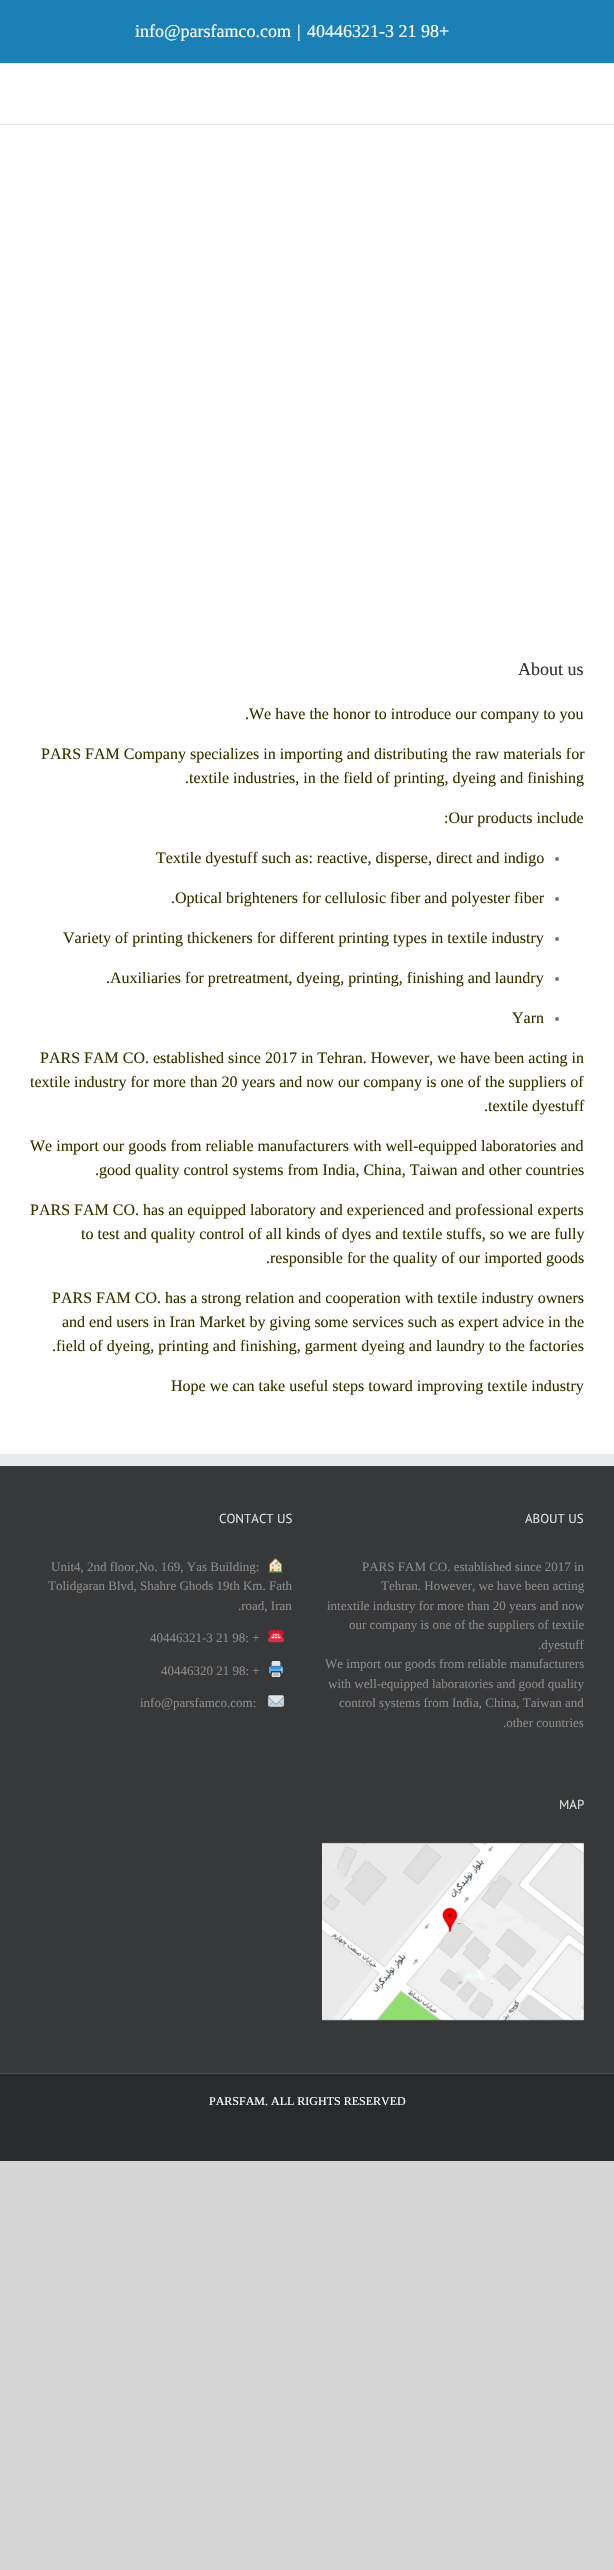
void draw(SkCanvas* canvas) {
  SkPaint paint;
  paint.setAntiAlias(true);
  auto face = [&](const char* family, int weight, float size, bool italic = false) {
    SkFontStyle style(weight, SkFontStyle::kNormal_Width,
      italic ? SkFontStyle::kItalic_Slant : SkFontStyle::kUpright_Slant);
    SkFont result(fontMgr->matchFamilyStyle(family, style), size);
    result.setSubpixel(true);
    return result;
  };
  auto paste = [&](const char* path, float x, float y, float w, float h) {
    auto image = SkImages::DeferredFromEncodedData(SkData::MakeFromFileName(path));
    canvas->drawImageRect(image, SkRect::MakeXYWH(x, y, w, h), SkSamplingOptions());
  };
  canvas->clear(0xffd7d6d6);
  {
    const struct { float x, y, w, h; SkColor color; } items[] = {
      {0, 64, 614, 1390, 0xffffffff},
      {0, 0, 614, 63, 0xff1a80b6},
      {0, 63, 614, 1, 0xffe5e5e5},
      {0, 124, 614, 1, 0xffe5e5e5},
    };
    for (auto [x, y, w, h, color] : items) {
      paint.setColor(color);
      canvas->drawRect(SkRect::MakeXYWH(x, y, w, h), paint);
    }
  }
  paint.setColor(0xff747474);
  canvas->drawCircle(557, 859, 2, paint);
  canvas->drawCircle(557, 899, 2, paint);
  canvas->drawCircle(557, 939, 2, paint);
  canvas->drawCircle(557, 979, 2, paint);
  canvas->drawCircle(557, 1019, 2, paint);
  paint.setColor(0xff363839);
  canvas->drawRect(SkRect::MakeXYWH(0, 1466, 614, 607), paint);
  paint.setColor(0xffe9eaee);
  canvas->drawRect(SkRect::MakeXYWH(0, 1454, 614, 12), paint);
  paste("img/1.png", 268, 1557, 15, 16);
  paste("img/2.png", 267, 1629, 18, 14);
  paste("img/3.png", 269, 1661, 14, 16);
  paste("img/4.png", 267, 1695, 18, 12);
  paste("img/5.png", 322, 1842, 262, 179);
  paint.setColor(0xff282a2b);
  canvas->drawRect(SkRect::MakeXYWH(0, 2074, 614, 87), paint);
  paint.setColor(0xff4b4c4d);
  canvas->drawRect(SkRect::MakeXYWH(0, 2073, 614, 1), paint);
  auto f0 = face("Liberation Serif", 400, 18);
  paint.setColor(0xffffffff);
  {
    const struct { const char* s; float x, y; } items[] = {
      {"info@parsfamco.com", 135, 37},
      {"|", 297, 37},
      {"40446321-3 21 98+", 307, 37},
    };
    for (auto [s, x, y] : items) {
      canvas->drawString(s, x, y, f0, paint);
    }
  }
  paint.setColor(0xff333333);
  canvas->drawString("About us", 518, 675, f0, paint);
  auto f1 = face("Liberation Serif", 400, 16);
  paint.setColor(0xff333300);
  {
    const struct { const char* s; float x, y; } items[] = {
      {".We have the honor to introduce our company to you", 245, 719},
      {"PARS FAM Company specializes in importing and distributing the raw materials for", 41, 759},
      {".textile industries, in the field of printing, dyeing and finishing", 185, 783},
      {":Our products include", 444, 823},
      {"Textile dyestuff such as: reactive, disperse, direct and indigo", 156, 863},
      {".Optical brighteners for cellulosic fiber and polyester fiber", 171, 903},
      {"Variety of printing thickeners for different printing types in textile industry", 63, 943},
      {".Auxiliaries for pretreatment, dyeing, printing, finishing and laundry", 106, 983},
      {"Yarn", 512, 1023},
      {"PARS FAM CO. established since 2017 in Tehran. However, we have been acting in", 40, 1063},
      {"textile industry for more than 20 years and now our company is one of the suppliers of", 30, 1087},
      {".textile dyestuff", 484, 1111},
      {"We import our goods from reliable manufacturers with well-equipped laboratories and", 30, 1151},
      {".good quality control systems from India, China, Taiwan and other countries", 95, 1175},
      {"PARS FAM CO. has an equipped laboratory and experienced and professional experts", 30, 1215},
      {"to test and quality control of all kinds of dyes and textile stuffs, so we are fully", 81, 1239},
      {".responsible for the quality of our imported goods", 266, 1263},
      {"PARS FAM CO. has a strong relation and cooperation with textile industry owners", 52, 1303},
      {"and end users in Iran Market by giving some services such as expert advice in the", 62, 1327},
      {".field of dyeing, printing and finishing, garment dyeing and laundry to the factories", 52, 1351},
      {"Hope we can take useful steps toward improving textile industry", 171, 1391},
    };
    for (auto [s, x, y] : items) {
      canvas->drawString(s, x, y, f1, paint);
    }
  }
  auto f2 = face("PT Sans", 400, 13);
  paint.setColor(0xffdddddd);
  canvas->drawString("CONTACT US", 219, 1523, f2, paint);
  auto f3 = face("Liberation Serif", 400, 13);
  paint.setColor(0xff8c8989);
  {
    const struct { const char* s; float x, y; } items[] = {
      {"Unit4, 2nd floor,No. 169, Yas Building:", 51, 1571},
      {"Tolidgaran Blvd, Shahre Ghods 19th Km. Fath", 48, 1590},
      {".road, Iran", 238, 1610},
      {"40446321-3 21 98: +", 150, 1642},
      {"40446320 21 98: +", 161, 1675},
      {"info@parsfamco.com:", 140, 1707},
    };
    for (auto [s, x, y] : items) {
      canvas->drawString(s, x, y, f3, paint);
    }
  }
  paint.setColor(0xffdddddd);
  canvas->drawString("ABOUT US", 525, 1523, f2, paint);
  paint.setColor(0xff8c8989);
  {
    const struct { const char* s; float x, y; } items[] = {
      {"PARS FAM CO. established since 2017 in", 362, 1571},
      {"Tehran. However, we have been acting", 381, 1590},
      {"intextile industry for more than 20 years and now", 327, 1610},
      {"our company is one of the suppliers of textile", 349, 1629},
      {".dyestuff", 538, 1649},
      {"We import our goods from reliable manufacturers", 325, 1668},
      {"with well-equipped laboratories and good quality", 328, 1688},
      {"control systems from India, China, Taiwan and", 339, 1707},
      {".other countries", 503, 1727},
    };
    for (auto [s, x, y] : items) {
      canvas->drawString(s, x, y, f3, paint);
    }
  }
  paint.setColor(0xffdddddd);
  canvas->drawString("MAP", 559, 1809, f2, paint);
  auto f4 = face("Liberation Serif", 400, 12);
  paint.setColor(0xffffffff);
  canvas->drawString("PARSFAM. ALL RIGHTS RESERVED", 209, 2105, f4, paint);
}
